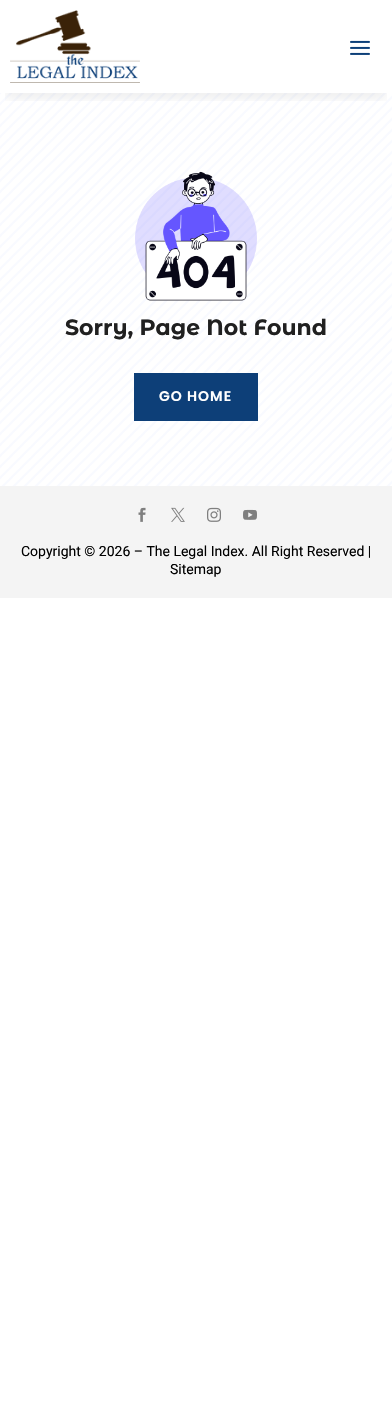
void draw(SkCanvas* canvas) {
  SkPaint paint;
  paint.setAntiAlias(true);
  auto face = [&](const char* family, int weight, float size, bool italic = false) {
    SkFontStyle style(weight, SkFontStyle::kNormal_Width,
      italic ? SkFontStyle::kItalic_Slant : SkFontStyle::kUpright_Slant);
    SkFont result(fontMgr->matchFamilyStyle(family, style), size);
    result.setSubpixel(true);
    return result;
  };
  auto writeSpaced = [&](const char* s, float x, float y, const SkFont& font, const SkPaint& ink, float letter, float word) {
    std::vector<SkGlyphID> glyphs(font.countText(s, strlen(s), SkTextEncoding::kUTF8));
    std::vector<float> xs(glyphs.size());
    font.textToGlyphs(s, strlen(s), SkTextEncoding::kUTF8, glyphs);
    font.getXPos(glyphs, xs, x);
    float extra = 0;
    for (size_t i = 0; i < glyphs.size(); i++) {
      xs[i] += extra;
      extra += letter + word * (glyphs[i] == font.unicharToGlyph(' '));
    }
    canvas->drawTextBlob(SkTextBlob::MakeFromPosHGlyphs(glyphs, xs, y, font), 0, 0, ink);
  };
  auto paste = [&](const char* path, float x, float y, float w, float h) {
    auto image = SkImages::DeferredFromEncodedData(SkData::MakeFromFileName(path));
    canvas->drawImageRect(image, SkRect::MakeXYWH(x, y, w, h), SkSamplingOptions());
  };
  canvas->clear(0xffffffff);
  paste("img/3.png", 0, 93, 392, 393);
  canvas->save();
  canvas->clipRect(SkRect::MakeXYWH(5, 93, 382, 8));
  paint.setColor(0x0f000000);
  paint.setMaskFilter(SkMaskFilter::MakeBlur(kNormal_SkBlurStyle, 5));
  canvas->drawRect(SkRect::MakeXYWH(6, 18, 380, 81), paint);
  paint.setMaskFilter(nullptr);
  canvas->restore();
  paste("img/1.png", 10, 10, 130, 73);
  paste("img/2.png", 350, 40, 20, 15);
  paste("img/4.png", 135, 171, 122, 130);
  paint.setColor(0xff0d3f78);
  canvas->drawRect(SkRect::MakeXYWH(134, 373, 124, 48), paint);
  paint.setColor(0xfff4f4f4);
  canvas->drawRect(SkRect::MakeXYWH(0, 486, 392, 112), paint);
  paste("img/5.png", 138, 507, 8, 15);
  paste("img/6.png", 171, 507, 14, 15);
  paste("img/7.png", 207, 507, 14, 15);
  paste("img/8.png", 243, 509, 14, 11);
  auto f0 = face("Montserrat Alternates", 700, 22);
  paint.setColor(0xff202020);
  canvas->drawString("Sorry, Page Not Found", 65, 335, f0, paint);
  auto f1 = face("Poppins", 600, 14);
  paint.setColor(0xffffffff);
  writeSpaced("GO HOME", 159, 401, f1, paint, 1, 0);
  auto f2 = face("Roboto", 400, 14);
  paint.setColor(0xff000000);
  canvas->drawString("Copyright © 2026 – The Legal Index. All Right Reserved |", 21, 556, f2, paint);
  canvas->drawString("Sitemap", 170, 574, f2, paint);
}
